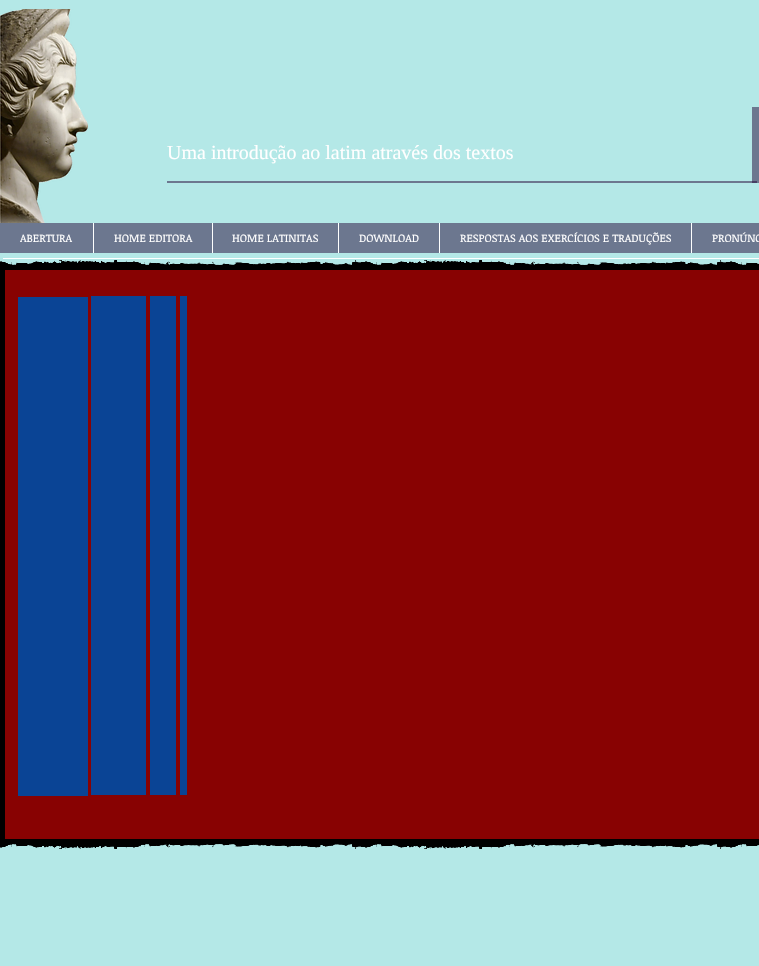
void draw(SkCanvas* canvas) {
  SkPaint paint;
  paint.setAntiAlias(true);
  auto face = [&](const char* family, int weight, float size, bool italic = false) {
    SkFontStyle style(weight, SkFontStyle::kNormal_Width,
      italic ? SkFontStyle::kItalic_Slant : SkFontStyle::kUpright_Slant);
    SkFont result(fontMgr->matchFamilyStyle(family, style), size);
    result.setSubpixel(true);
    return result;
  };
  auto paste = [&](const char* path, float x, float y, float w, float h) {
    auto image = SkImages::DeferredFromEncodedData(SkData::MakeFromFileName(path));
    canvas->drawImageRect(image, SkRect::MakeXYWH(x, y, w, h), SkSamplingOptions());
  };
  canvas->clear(0xffb4e8e7);
  paste("img/1.png", 0, 9, 88, 214);
  {
    const struct { float x, y, w, h; SkColor color; } items[] = {
      {167, 181, 590, 2, 0xff6c778f},
      {752, 107, 7, 76, 0xff6c778f},
      {752, 181, 5, 2, 0xff483f63},
      {0, 223, 759, 30, 0xff6c778f},
      {93, 223, 1, 30, 0xffffffff},
      {212, 223, 1, 30, 0xffffffff},
      {338, 223, 1, 30, 0xffffffff},
      {439, 223, 1, 30, 0xffffffff},
      {691, 223, 1, 30, 0xffffffff},
      {3, 258, 756, 1, 0xffffffff},
      {5, 270, 754, 569, 0xff880202},
    };
    for (auto [x, y, w, h, color] : items) {
      paint.setColor(color);
      canvas->drawRect(SkRect::MakeXYWH(x, y, w, h), paint);
    }
  }
  paste("img/2.png", 0, 260, 759, 10);
  paste("img/3.png", 0, 839, 759, 10);
  {
    const struct { float x, y, w, h; SkColor color; } items[] = {
      {0, 270, 5, 569, 0xff000000},
      {18, 297, 70, 499, 0xff0a4495},
      {91, 296, 55, 499, 0xff0a4495},
      {150, 296, 26, 499, 0xff0a4495},
      {180, 296, 7, 499, 0xff0a4495},
    };
    for (auto [x, y, w, h, color] : items) {
      paint.setColor(color);
      canvas->drawRect(SkRect::MakeXYWH(x, y, w, h), paint);
    }
  }
  auto f0 = face("Liberation Serif", 400, 20);
  paint.setColor(0xffffffff);
  canvas->drawString("Uma introdução ao latim através dos textos", 167, 159, f0, paint);
  auto f1 = face("Noticia Text", 400, 11);
  {
    const struct { const char* s; float x, y; } items[] = {
      {"ABERTURA", 20, 242},
      {"HOME EDITORA", 114, 242},
      {"HOME LATINITAS", 232, 242},
      {"DOWNLOAD", 359, 242},
      {"RESPOSTAS AOS EXERCÍCIOS E TRADUÇÕES", 460, 242},
      {"PRONÚNC", 712, 242},
    };
    for (auto [s, x, y] : items) {
      canvas->drawString(s, x, y, f1, paint);
    }
  }
}
